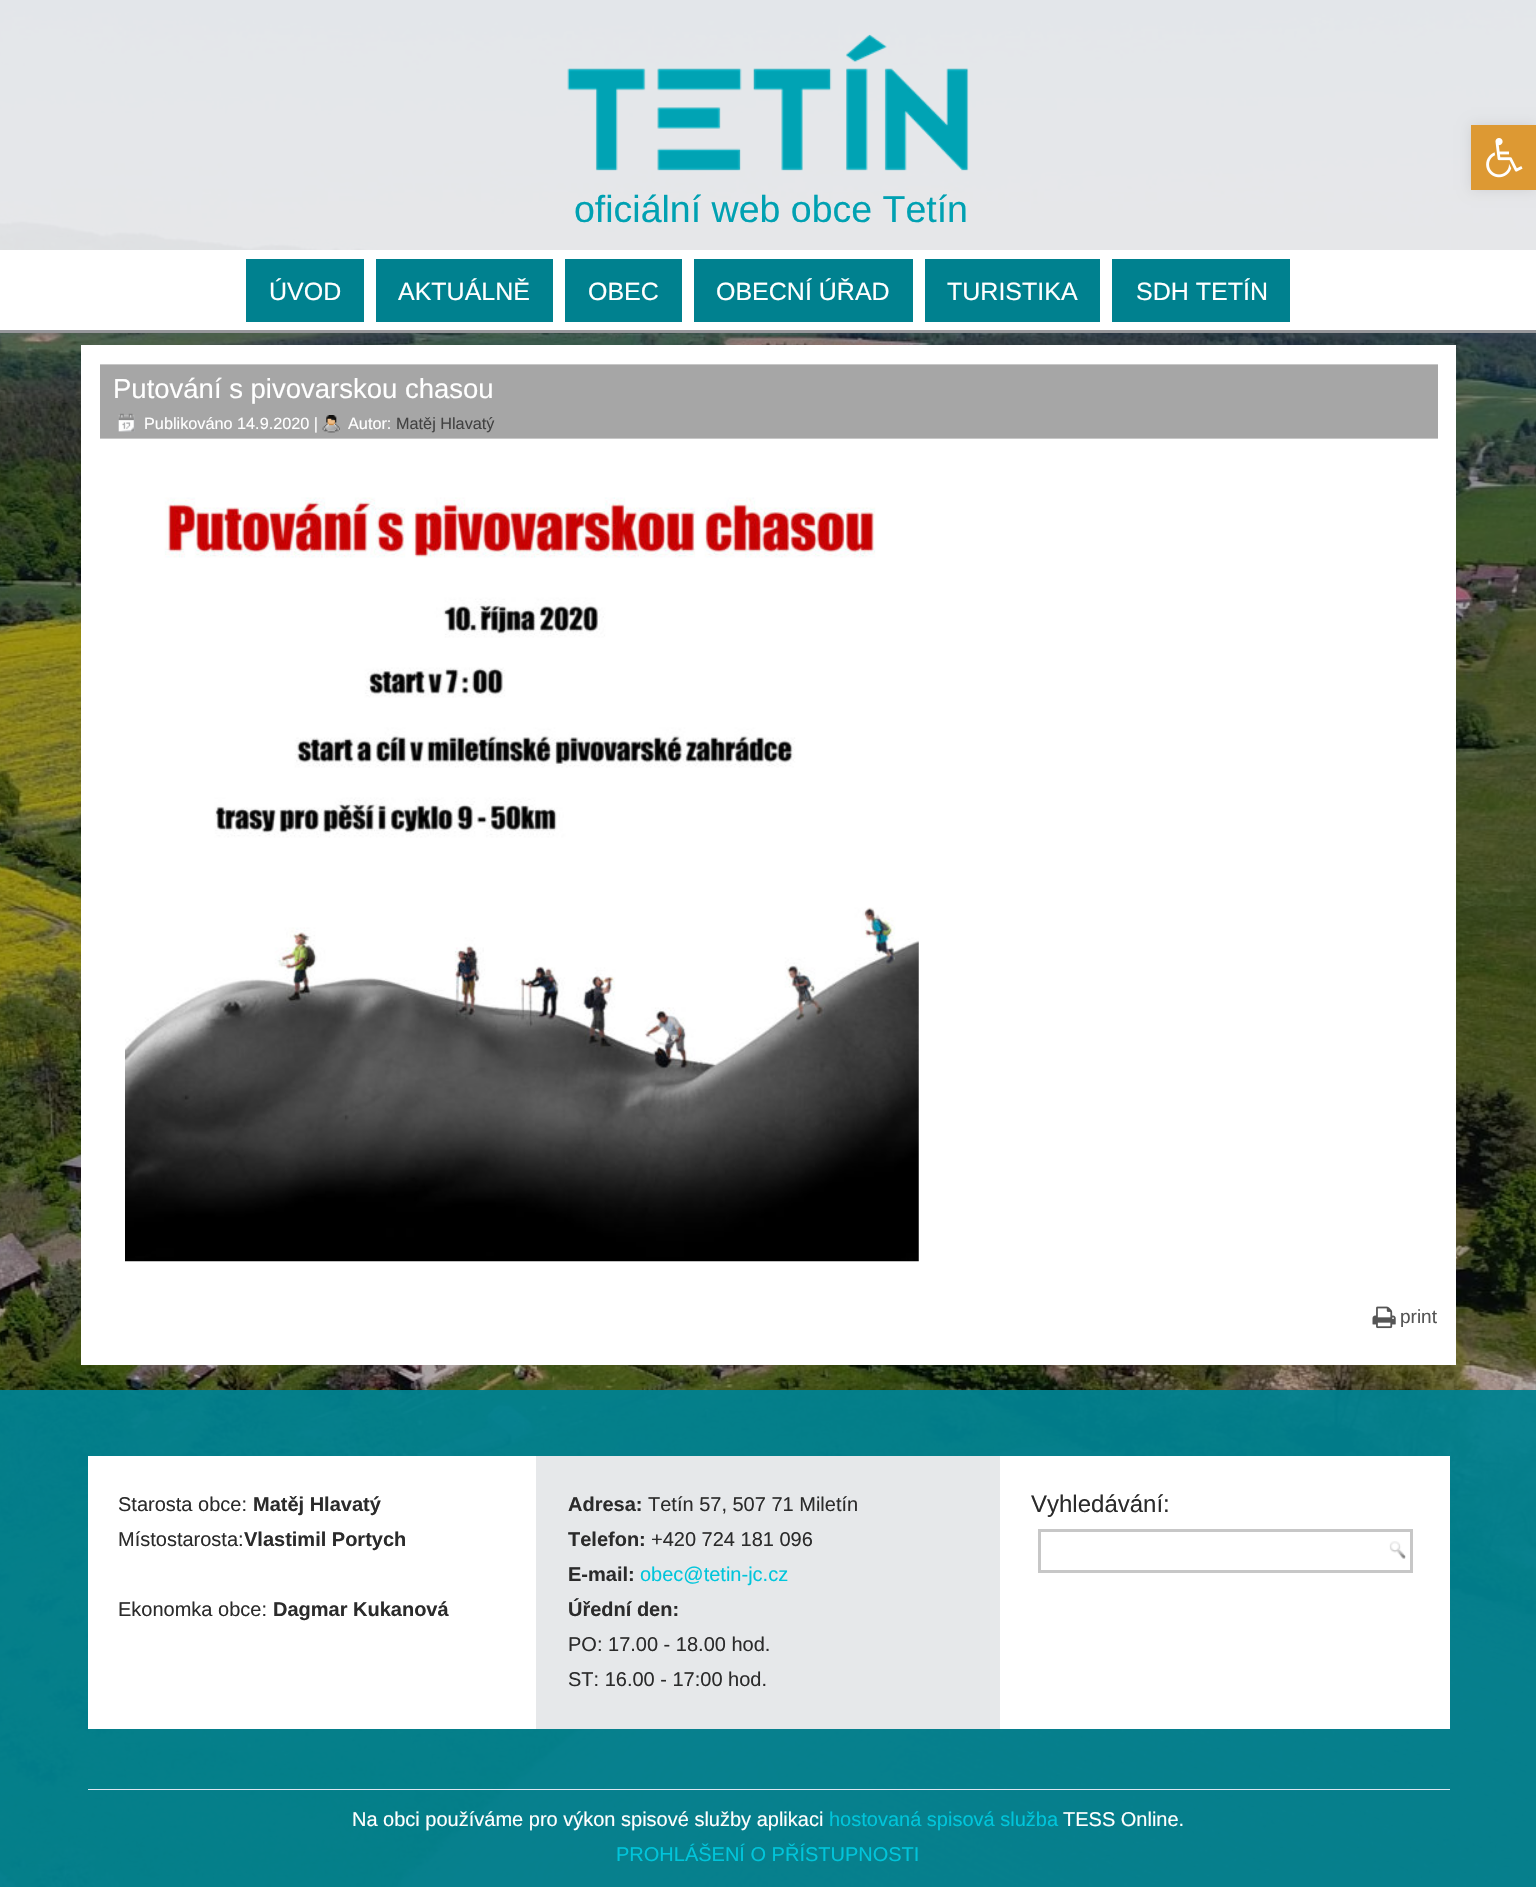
void draw(SkCanvas* canvas) {
  SkPaint paint;
  paint.setAntiAlias(true);
  auto face = [&](const char* family, int weight, float size, bool italic = false) {
    SkFontStyle style(weight, SkFontStyle::kNormal_Width,
      italic ? SkFontStyle::kItalic_Slant : SkFontStyle::kUpright_Slant);
    SkFont result(fontMgr->matchFamilyStyle(family, style), size);
    result.setSubpixel(true);
    return result;
  };
  auto paste = [&](const char* path, float x, float y, float w, float h) {
    auto image = SkImages::DeferredFromEncodedData(SkData::MakeFromFileName(path));
    canvas->drawImageRect(image, SkRect::MakeXYWH(x, y, w, h), SkSamplingOptions());
  };
  canvas->clear(0xffffffff);
  paste("img/1.png", 0, 0, 1536, 1887);
  paint.setColor(0xe6f1f1f1);
  canvas->drawRect(SkRect::MakeXYWH(0, 0, 1536, 250), paint);
  paint.setColor(0x1a000000);
  paint.setMaskFilter(SkMaskFilter::MakeBlur(kNormal_SkBlurStyle, 6));
  canvas->drawRect(SkRect::MakeXYWH(1471, 125, 65, 65), paint);
  paint.setMaskFilter(nullptr);
  paint.setColor(0xffdd9933);
  canvas->drawRect(SkRect::MakeXYWH(1471, 125, 65, 65), paint);
  paste("img/2.png", 1486, 138, 37, 40);
  paste("img/3.png", 567, 34, 402, 137);
  {
    const struct { float x, y, w, h; SkColor color; } items[] = {
      {0, 250, 1536, 80, 0xffffffff},
      {0, 330, 1536, 3, 0xff97979b},
      {246, 259, 118, 63, 0xff00818f},
      {376, 259, 177, 63, 0xff00818f},
      {565, 259, 117, 63, 0xff00818f},
      {694, 259, 219, 63, 0xff00818f},
      {925, 259, 175, 63, 0xff00818f},
      {1112, 259, 178, 63, 0xff00818f},
      {81, 345, 1375, 1020, 0xffffffff},
      {100, 365, 1338, 73, 0xffa6a6a6},
      {100, 364, 1338, 1, 0xffc7c7c7},
      {100, 438, 1338, 1, 0xffc7c7c7},
    };
    for (auto [x, y, w, h, color] : items) {
      paint.setColor(color);
      canvas->drawRect(SkRect::MakeXYWH(x, y, w, h), paint);
    }
  }
  paste("img/4.png", 118, 413, 17, 19);
  paste("img/5.png", 322, 415, 18, 18);
  paste("img/6.png", 125, 497, 794, 765);
  paste("img/7.png", 1372, 1306, 24, 23);
  {
    const struct { float x, y, w, h; SkColor color; } items[] = {
      {0, 1390, 1536, 497, 0xf200818f},
      {88, 1456, 448, 273, 0xffffffff},
      {536, 1456, 464, 273, 0xffe6e8ea},
      {1000, 1456, 450, 273, 0xffffffff},
    };
    for (auto [x, y, w, h, color] : items) {
      paint.setColor(color);
      canvas->drawRect(SkRect::MakeXYWH(x, y, w, h), paint);
    }
  }
  paint.setStroke(true);
  paint.setStrokeWidth(3);
  paint.setColor(0xffc7c7c7);
  canvas->drawRect(SkRect::MakeXYWH(1039.5f, 1530.5f, 372, 41), paint);
  paste("img/8.png", 1389, 1541, 17, 18);
  paint.setStroke(false);
  paint.setColor(0xffdee6f2);
  canvas->drawRect(SkRect::MakeXYWH(88, 1789, 1362, 1), paint);
  auto f0 = face("Liberation Sans", 400, 37.5f);
  paint.setColor(0xff00a1b2);
  canvas->drawString("oficiální web obce Tetín", 574, 222, f0, paint);
  auto f1 = face("Liberation Sans", 400, 25);
  paint.setColor(0xffffffff);
  {
    const struct { const char* s; float x, y; } items[] = {
      {"ÚVOD", 269, 300},
      {"AKTUÁLNĚ", 398, 300},
      {"OBEC", 588, 300},
      {"OBECNÍ ÚŘAD", 716, 300},
      {"TURISTIKA", 947, 300},
      {"SDH TETÍN", 1136, 300},
    };
    for (auto [s, x, y] : items) {
      canvas->drawString(s, x, y, f1, paint);
    }
  }
  auto f2 = face("Liberation Sans", 400, 27.5f);
  canvas->drawString("Putování s pivovarskou chasou", 113, 398, f2, paint);
  auto f3 = face("Liberation Sans", 400, 16.25f);
  canvas->drawString("Publikováno 14.9.2020 |", 144, 429, f3, paint);
  canvas->drawString("Autor:", 348, 429, f3, paint);
  paint.setColor(0xff424242);
  canvas->drawString("Matěj Hlavatý", 396, 429, f3, paint);
  auto f4 = face("Liberation Sans", 400, 19);
  paint.setColor(0xff555555);
  canvas->drawString("print", 1400, 1323, f4, paint);
  auto f5 = face("Liberation Sans", 400, 20);
  paint.setColor(0xff2b2b2b);
  canvas->drawString("Starosta obce:", 118, 1511, f5, paint);
  auto f6 = face("Liberation Sans", 700, 20);
  canvas->drawString("Matěj Hlavatý", 253, 1511, f6, paint);
  canvas->drawString("Místostarosta:", 118, 1546, f5, paint);
  canvas->drawString("Vlastimil Portych", 244, 1546, f6, paint);
  canvas->drawString("Ekonomka obce:", 118, 1616, f5, paint);
  canvas->drawString("Dagmar Kukanová", 273, 1616, f6, paint);
  canvas->drawString("Adresa:", 568, 1511, f6, paint);
  canvas->drawString("Tetín 57, 507 71 Miletín", 648, 1511, f5, paint);
  canvas->drawString("Telefon:", 568, 1546, f6, paint);
  canvas->drawString("+420 724 181 096", 651, 1546, f5, paint);
  canvas->drawString("E-mail:", 568, 1581, f6, paint);
  paint.setColor(0xff00c5db);
  canvas->drawString("obec@tetin-jc.cz", 640, 1581, f5, paint);
  paint.setColor(0xff2b2b2b);
  canvas->drawString("Úřední den:", 568, 1616, f6, paint);
  canvas->drawString("PO: 17.00 - 18.00 hod.", 568, 1651, f5, paint);
  canvas->drawString("ST: 16.00 - 17:00 hod.", 568, 1686, f5, paint);
  auto f7 = face("Liberation Sans", 400, 24);
  canvas->drawString("Vyhledávání:", 1031, 1512, f7, paint);
  paint.setColor(0xffffffff);
  canvas->drawString("Na obci používáme pro výkon spisové služby aplikaci", 352, 1826, f5, paint);
  paint.setColor(0xff00c5db);
  canvas->drawString("hostovaná spisová služba", 829, 1826, f5, paint);
  paint.setColor(0xffffffff);
  canvas->drawString("TESS Online.", 1063, 1826, f5, paint);
  paint.setColor(0xff00c5db);
  canvas->drawString("PROHLÁŠENÍ O PŘÍSTUPNOSTI", 616, 1861, f5, paint);
}
